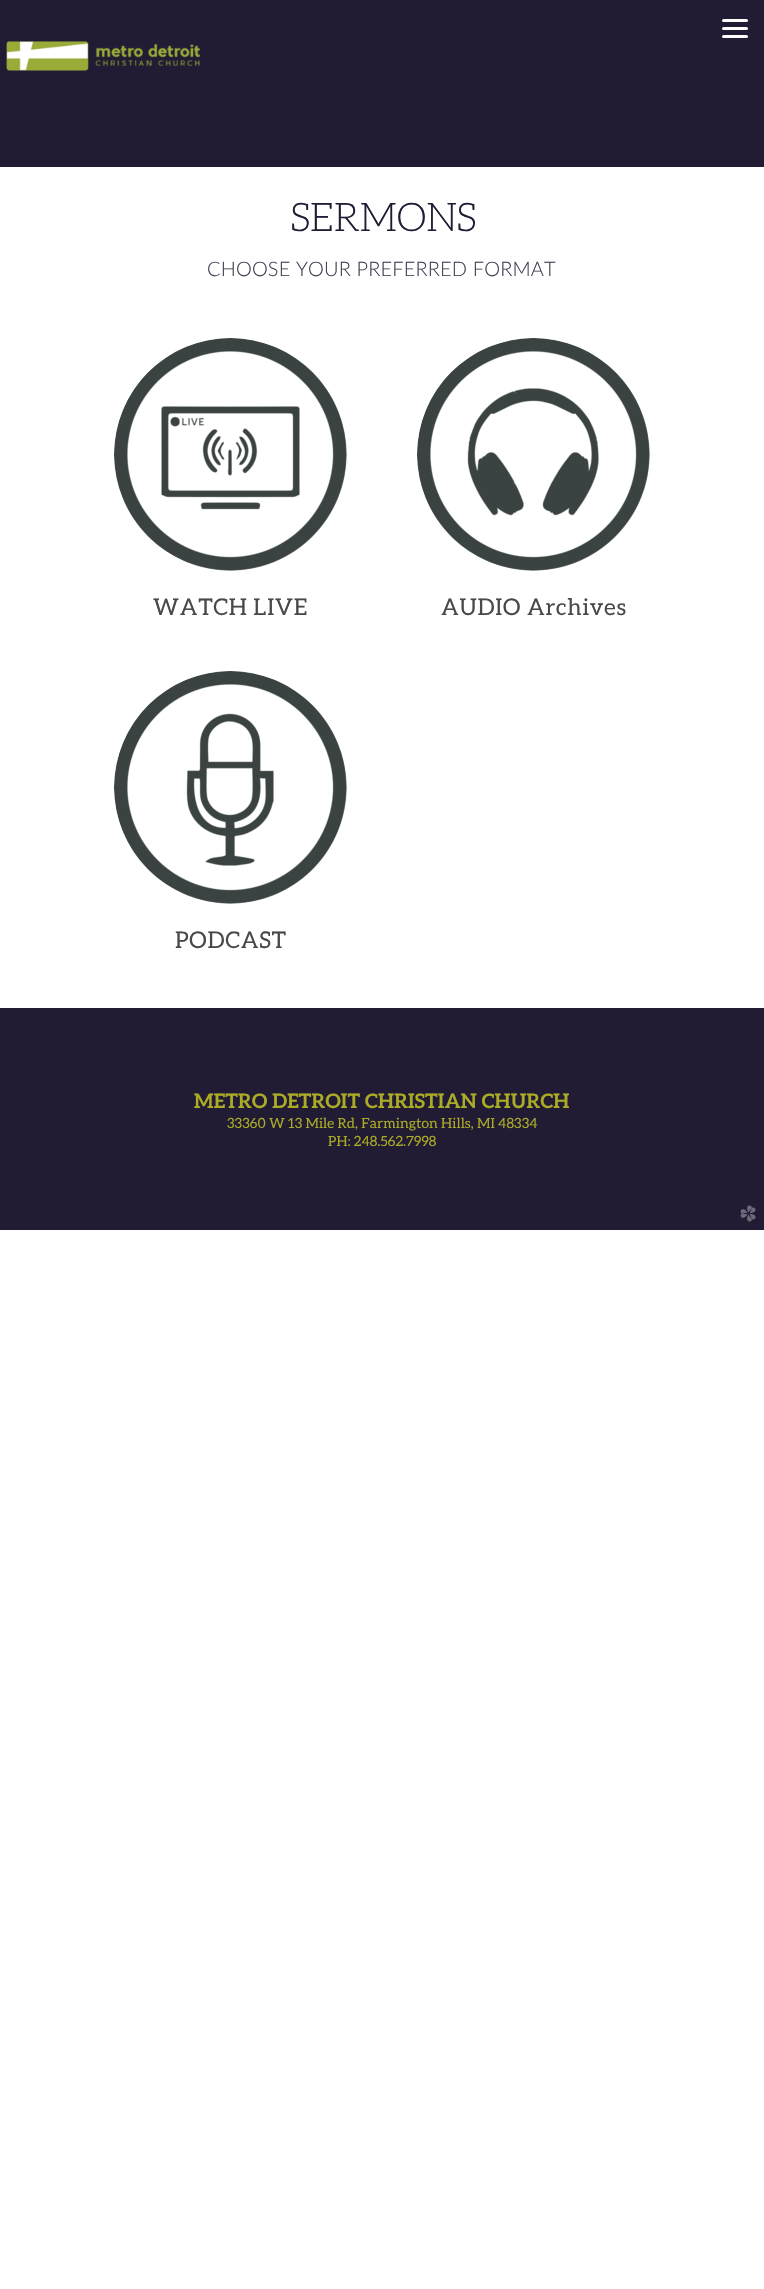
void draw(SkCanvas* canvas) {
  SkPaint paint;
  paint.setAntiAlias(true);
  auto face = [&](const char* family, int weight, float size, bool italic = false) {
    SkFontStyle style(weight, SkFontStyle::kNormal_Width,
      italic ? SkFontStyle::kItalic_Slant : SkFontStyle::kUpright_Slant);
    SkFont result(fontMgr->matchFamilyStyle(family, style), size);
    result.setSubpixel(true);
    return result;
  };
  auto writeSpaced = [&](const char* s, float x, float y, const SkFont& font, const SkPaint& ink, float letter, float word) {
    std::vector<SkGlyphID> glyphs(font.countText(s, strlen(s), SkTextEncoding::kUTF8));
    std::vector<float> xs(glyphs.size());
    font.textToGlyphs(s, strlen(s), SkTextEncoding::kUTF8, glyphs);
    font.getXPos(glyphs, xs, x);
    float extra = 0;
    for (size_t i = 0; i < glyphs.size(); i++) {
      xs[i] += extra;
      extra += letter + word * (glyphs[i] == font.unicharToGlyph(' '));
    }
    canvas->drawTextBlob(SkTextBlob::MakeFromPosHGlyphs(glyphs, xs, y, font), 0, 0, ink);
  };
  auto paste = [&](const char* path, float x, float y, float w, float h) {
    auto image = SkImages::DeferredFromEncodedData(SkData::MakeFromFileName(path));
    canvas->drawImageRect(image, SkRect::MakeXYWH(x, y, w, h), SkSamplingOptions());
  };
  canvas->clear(0xffffffff);
  paint.setColor(0xff211c33);
  canvas->drawRect(SkRect::MakeXYWH(0, 0, 764, 167), paint);
  paint.setColor(0xffffffff);
  canvas->drawRoundRect(SkRect::MakeXYWH(722, 19, 26, 3), 1.5f, 1.5f, paint);
  canvas->drawRoundRect(SkRect::MakeXYWH(722, 27, 26, 3), 1.5f, 1.5f, paint);
  canvas->drawRoundRect(SkRect::MakeXYWH(722, 35, 26, 3), 1.5f, 1.5f, paint);
  paste("img/1.png", 6, 41, 195, 30);
  paste("img/2.png", 114, 338, 233, 233);
  paste("img/3.png", 417, 338, 233, 233);
  paste("img/4.png", 114, 671, 233, 233);
  paint.setColor(0xff211c33);
  canvas->drawRect(SkRect::MakeXYWH(0, 1008, 764, 222), paint);
  paste("img/5.png", 740, 1205, 16, 17);
  auto f0 = face("Aleo", 300, 39.5f);
  writeSpaced("SERMONS", 290, 231, f0, paint, -0.75f, 0);
  auto f1 = face("Lato", 300, 20);
  paint.setColor(0xff423e52);
  writeSpaced("CHOOSE YOUR PREFERRED FORMAT", 207, 276, f1, paint, 0.15f, 0);
  auto f2 = face("Aleo", 400, 23);
  paint.setColor(0xff494949);
  {
    const struct { const char* s; float x, y; } items[] = {
      {"WATCH LIVE", 153, 615},
      {"AUDIO Archives", 441, 615},
      {"PODCAST", 175, 948},
    };
    for (auto [s, x, y] : items) {
      writeSpaced(s, x, y, f2, paint, 0.75f, 0);
    }
  }
  auto f3 = face("Aleo", 700, 20);
  paint.setColor(0xffabab26);
  writeSpaced("METRO DETROIT CHRISTIAN CHURCH", 194, 1108, f3, paint, 0.15f, 0);
  auto f4 = face("Aleo", 400, 14);
  writeSpaced("33360 W 13 Mile Rd, Farmington Hills, MI 48334", 227, 1128, f4, paint, 0.15f, 0);
  writeSpaced("PH: 248.562.7998", 328, 1146, f4, paint, 0.15f, 0);
}
